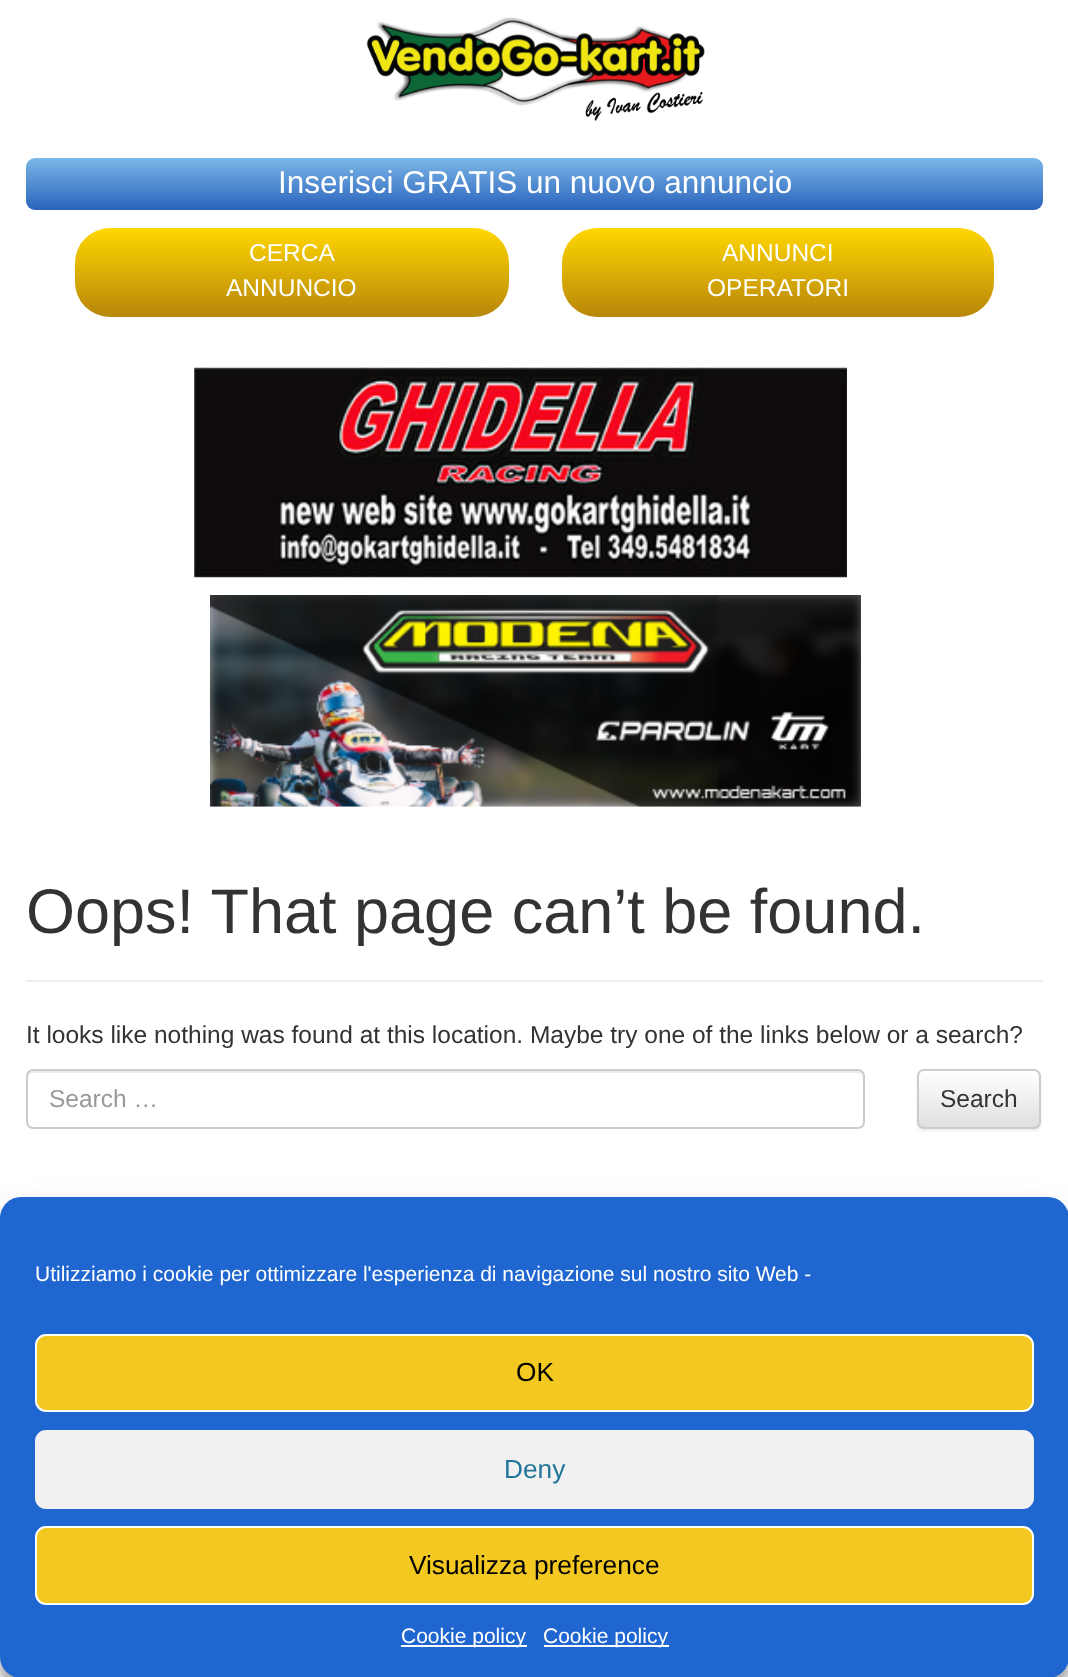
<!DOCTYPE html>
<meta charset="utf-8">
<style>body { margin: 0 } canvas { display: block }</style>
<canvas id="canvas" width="1068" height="1677"></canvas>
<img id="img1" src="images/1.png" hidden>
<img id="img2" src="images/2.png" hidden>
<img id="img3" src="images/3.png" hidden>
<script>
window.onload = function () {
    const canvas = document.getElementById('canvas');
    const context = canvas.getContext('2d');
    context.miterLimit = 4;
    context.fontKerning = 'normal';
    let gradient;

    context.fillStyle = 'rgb(255, 255, 255)';
    context.fillRect(0, 0, 1068, 1677);
    context.drawImage(document.getElementById('img1'), 366, 17, 339, 104);
    gradient = context.createLinearGradient(535, 157, 535, 210);
    gradient.addColorStop(0, 'rgb(125, 185, 232)');
    gradient.addColorStop(1, 'rgb(42, 98, 188)');
    gradient.addColorStop(1, 'rgb(125, 185, 232)');
    context.fillStyle = gradient;
    context.beginPath();
    context.roundRect(26, 158, 1017, 52, 9);
    context.fill();
    gradient = context.createLinearGradient(292, 228, 292, 317);
    gradient.addColorStop(0, 'rgb(255, 215, 0)');
    gradient.addColorStop(1, 'rgb(184, 134, 11)');
    gradient.addColorStop(1, 'rgb(255, 215, 0)');
    context.fillStyle = gradient;
    context.beginPath();
    context.roundRect(75, 228, 434, 89, 35);
    context.fill();
    gradient = context.createLinearGradient(778, 228, 778, 317);
    gradient.addColorStop(0, 'rgb(255, 215, 0)');
    gradient.addColorStop(1, 'rgb(184, 134, 11)');
    gradient.addColorStop(1, 'rgb(255, 215, 0)');
    context.fillStyle = gradient;
    context.beginPath();
    context.roundRect(562, 228, 432, 89, 35);
    context.fill();
    context.drawImage(document.getElementById('img2'), 194, 367, 653, 211);
    context.drawImage(document.getElementById('img3'), 210, 595, 651, 212);
    context.fillStyle = 'rgb(238, 238, 238)';
    context.fillRect(26, 980, 1017, 2);
    context.fillStyle = 'rgb(236, 236, 236)';
    context.beginPath();
    context.moveTo(33, 1073);
    context.lineTo(858, 1073);
    context.bezierCurveTo(860, 1073, 863, 1075, 863, 1078);
    context.lineTo(863, 1076);
    context.bezierCurveTo(863, 1073, 861, 1071, 858, 1071);
    context.lineTo(33, 1071);
    context.bezierCurveTo(30, 1071, 28, 1073, 28, 1076);
    context.lineTo(28, 1078);
    context.bezierCurveTo(28, 1075, 30, 1073, 33, 1073);
    context.closePath();
    context.fill();
    context.beginPath();
    context.roundRect(27, 1070, 837, 58, 6);
    context.strokeStyle = 'rgb(204, 204, 204)';
    context.lineWidth = 2;
    context.stroke();
    context.fillStyle = 'rgba(0, 0, 0, 0.07)';
    context.filter = 'blur(1px)';
    context.beginPath();
    context.roundRect(917, 1071, 124, 60, 7);
    context.fill();
    context.filter = 'none';
    context.save();
    context.beginPath();
    context.roundRect(917, 1069, 124, 60, 7);
    context.clip();
    gradient = context.createLinearGradient(979, 1071, 979, 1127);
    gradient.addColorStop(0, 'rgb(255, 255, 255)');
    gradient.addColorStop(1, 'rgb(224, 224, 224)');
    context.fillStyle = gradient;
    context.fillRect(917, 1071, 124, 56);
    context.restore();
    context.beginPath();
    context.roundRect(918, 1070, 122, 58, 6);
    context.stroke();
    context.fillStyle = 'rgba(0, 0, 0, 0.23)';
    context.filter = 'blur(5px)';
    context.beginPath();
    context.roundRect(0, 1208, 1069, 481, 21);
    context.fill();
    context.filter = 'none';
    context.fillStyle = 'rgba(0, 0, 0, 0.19)';
    context.filter = 'blur(17.5px)';
    context.beginPath();
    context.roundRect(0, 1215, 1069, 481, 21);
    context.fill();
    context.filter = 'none';
    context.fillStyle = 'rgb(31, 102, 209)';
    context.beginPath();
    context.roundRect(0, 1197, 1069, 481, 21);
    context.fill();
    context.fillStyle = 'rgb(242, 200, 33)';
    context.beginPath();
    context.roundRect(36, 1335, 997, 76, 10);
    context.fill();
    context.strokeStyle = 'rgb(255, 255, 255)';
    context.stroke();
    context.fillStyle = 'rgb(241, 241, 241)';
    context.beginPath();
    context.roundRect(36, 1431, 997, 77, 10);
    context.fill();
    context.strokeStyle = 'rgb(241, 241, 241)';
    context.stroke();
    context.fillStyle = 'rgb(242, 200, 33)';
    context.beginPath();
    context.roundRect(36, 1527, 997, 77, 10);
    context.fill();
    context.strokeStyle = 'rgb(255, 255, 255)';
    context.stroke();
    context.fillStyle = 'rgb(255, 255, 255)';
    context.fillRect(401, 1645, 126, 2);
    context.fillRect(544, 1645, 125, 2);
    context.font = '31.5px Liberation Sans';
    context.fillText('Inserisci GRATIS un nuovo annuncio', 278, 193);
    context.font = '24.5px Liberation Sans';
    context.fillText('CERCA', 249, 261);
    context.fillText('ANNUNCIO', 226, 296);
    context.fillText('ANNUNCI', 722, 261);
    context.fillText('OPERATORI', 707, 296);
    context.font = '63px Liberation Sans';
    context.fillStyle = 'rgb(51, 51, 51)';
    context.fillText('Oops! That page can’t be found.', 26, 933);
    context.font = '24.5px Liberation Sans';
    context.fillText('It looks like nothing was found at this location. Maybe try one of the links below or a search?', 26, 1043);
    context.fillStyle = 'rgb(153, 153, 153)';
    context.fillText('Search …', 49, 1107);
    context.fillStyle = 'rgb(51, 51, 51)';
    context.fillText('Search', 940, 1107);
    context.font = '21px Liberation Sans';
    context.fillStyle = 'rgb(255, 255, 255)';
    context.fillText('Utilizziamo i cookie per ottimizzare l\'esperienza di navigazione sul nostro sito Web -', 35, 1281);
    context.font = '26.25px Liberation Sans';
    context.fillStyle = 'rgb(0, 0, 0)';
    context.fillText('OK', 516, 1381);
    context.fillStyle = 'rgb(33, 117, 155)';
    context.fillText('Deny', 504, 1478);
    context.fillStyle = 'rgb(0, 0, 0)';
    context.fillText('Visualizza preference', 409, 1574);
    context.font = '21px Liberation Sans';
    context.fillStyle = 'rgb(255, 255, 255)';
    context.fillText('Cookie policy', 401, 1643);
    context.fillText('Cookie policy', 543, 1643);
};
</script>
